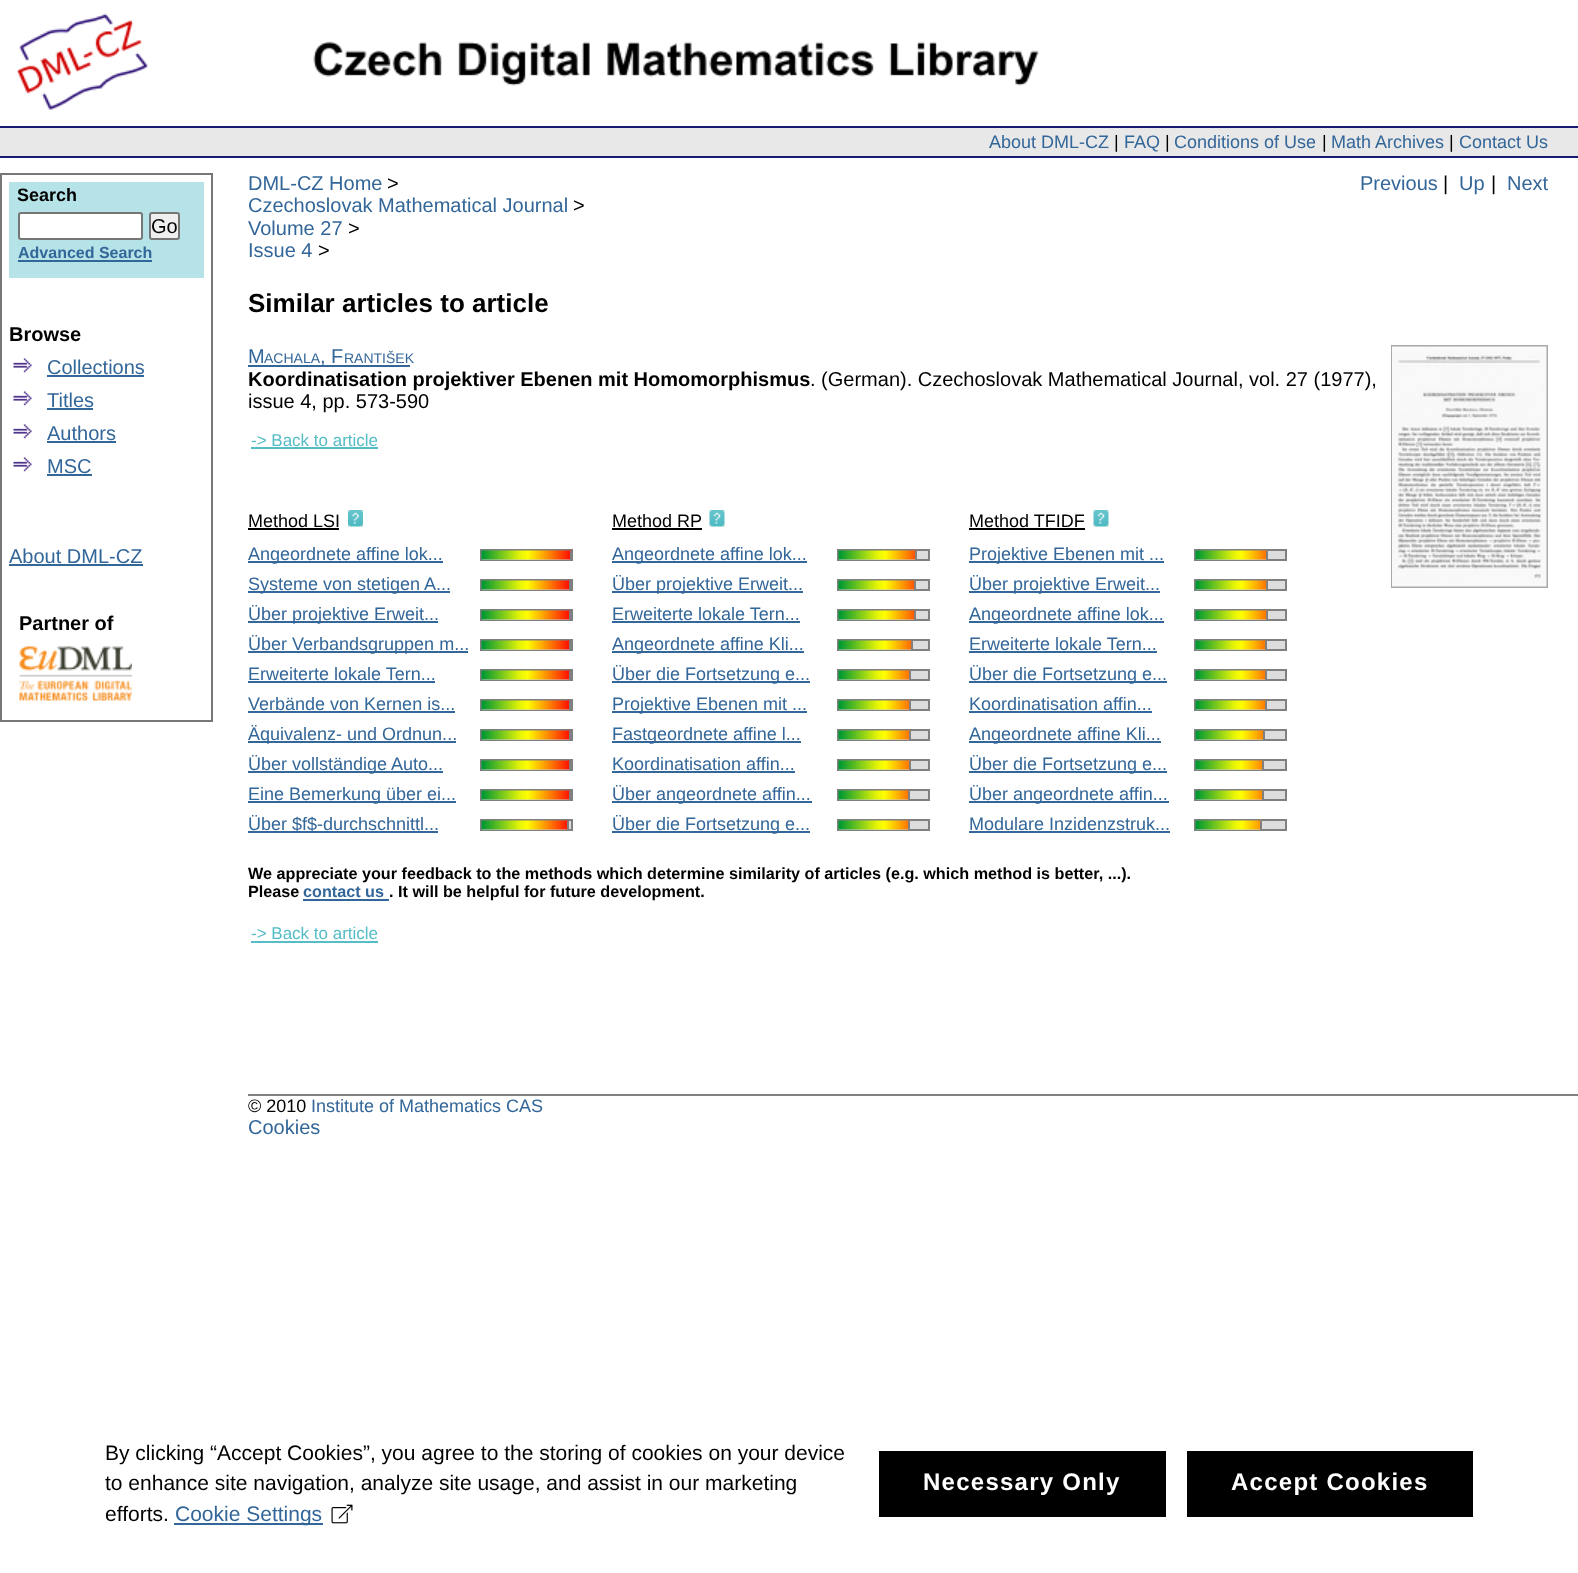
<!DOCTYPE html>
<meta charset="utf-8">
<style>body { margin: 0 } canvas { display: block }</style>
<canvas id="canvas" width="1578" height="1573"></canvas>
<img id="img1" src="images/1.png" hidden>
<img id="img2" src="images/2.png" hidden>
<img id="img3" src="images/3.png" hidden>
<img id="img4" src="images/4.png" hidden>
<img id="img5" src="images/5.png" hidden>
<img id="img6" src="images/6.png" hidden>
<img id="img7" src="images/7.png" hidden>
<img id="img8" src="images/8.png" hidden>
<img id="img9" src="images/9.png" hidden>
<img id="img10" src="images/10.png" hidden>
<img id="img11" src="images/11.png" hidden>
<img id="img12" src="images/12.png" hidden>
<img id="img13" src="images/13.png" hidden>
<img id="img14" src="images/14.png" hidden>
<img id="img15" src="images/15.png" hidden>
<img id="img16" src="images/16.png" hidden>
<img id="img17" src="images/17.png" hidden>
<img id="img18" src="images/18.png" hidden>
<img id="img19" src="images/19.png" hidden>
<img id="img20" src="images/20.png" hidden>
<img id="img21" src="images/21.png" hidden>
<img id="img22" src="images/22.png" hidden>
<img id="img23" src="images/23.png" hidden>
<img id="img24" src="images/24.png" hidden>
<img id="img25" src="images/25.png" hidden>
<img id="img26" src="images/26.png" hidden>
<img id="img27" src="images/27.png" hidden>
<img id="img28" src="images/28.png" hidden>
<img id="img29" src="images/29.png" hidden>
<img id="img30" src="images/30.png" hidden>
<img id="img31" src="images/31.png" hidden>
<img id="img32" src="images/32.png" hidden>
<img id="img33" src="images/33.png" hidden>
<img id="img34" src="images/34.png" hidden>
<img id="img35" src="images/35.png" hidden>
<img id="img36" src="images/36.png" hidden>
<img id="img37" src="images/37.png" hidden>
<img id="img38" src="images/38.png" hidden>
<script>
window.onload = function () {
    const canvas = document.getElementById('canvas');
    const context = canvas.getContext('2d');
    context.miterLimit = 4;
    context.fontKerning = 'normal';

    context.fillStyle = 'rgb(255, 255, 255)';
    context.fillRect(0, 0, 1578, 1573);
    context.strokeStyle = 'rgb(119, 119, 119)';
    context.lineWidth = 2;
    context.strokeRect(1, 174, 211, 547);
    context.fillStyle = 'rgb(181, 227, 231)';
    context.fillRect(9, 182, 195, 96);
    context.fillStyle = 'rgb(255, 255, 255)';
    context.beginPath();
    context.roundRect(19, 213, 123, 26, 2);
    context.fill();
    context.strokeStyle = 'rgb(118, 118, 118)';
    context.stroke();
    context.fillStyle = 'rgb(239, 239, 239)';
    context.beginPath();
    context.roundRect(150, 213, 29, 26, 2);
    context.fill();
    context.stroke();
    context.fillStyle = 'rgb(51, 102, 153)';
    context.fillRect(18, 260, 134, 2);
    context.drawImage(document.getElementById('img1'), 13, 358, 19, 15);
    context.fillRect(47, 375, 97, 2);
    context.drawImage(document.getElementById('img1'), 13, 391, 19, 15);
    context.fillRect(47, 408, 46, 2);
    context.drawImage(document.getElementById('img1'), 13, 424, 19, 15);
    context.fillRect(47, 441, 69, 2);
    context.drawImage(document.getElementById('img1'), 13, 457, 19, 15);
    context.fillRect(47, 474, 45, 2);
    context.fillRect(9, 564, 134, 2);
    context.drawImage(document.getElementById('img2'), 19, 646, 113, 55);
    context.drawImage(document.getElementById('img3'), 16, 13, 132, 97);
    context.drawImage(document.getElementById('img4'), 313, 41, 726, 45);
    context.fillStyle = 'rgb(232, 232, 232)';
    context.fillRect(0, 128, 1578, 28);
    context.fillStyle = 'rgb(25, 25, 112)';
    context.fillRect(0, 126, 1578, 2);
    context.fillRect(0, 156, 1578, 2);
    context.fillStyle = 'rgb(51, 102, 153)';
    context.fillRect(248, 365, 162, 2);
    context.strokeStyle = 'rgb(169, 169, 169)';
    context.strokeRect(1392, 346, 155, 241);
    context.drawImage(document.getElementById('img5'), 1392, 346, 155, 241);
    context.fillStyle = 'rgb(86, 189, 198)';
    context.fillRect(251, 447, 127, 2);
    context.fillStyle = 'rgb(0, 0, 0)';
    context.fillRect(248, 528, 91, 2);
    context.drawImage(document.getElementById('img6'), 348, 510, 15, 17);
    context.fillStyle = 'rgb(51, 102, 153)';
    context.fillRect(248, 561, 195, 2);
    context.strokeStyle = 'rgb(128, 128, 128)';
    context.strokeRect(481, 550, 91, 10);
    context.fillStyle = 'rgb(204, 204, 204)';
    context.fillRect(482, 559, 88, 1);
    context.drawImage(document.getElementById('img7'), 481, 550, 91, 10);
    context.fillStyle = 'rgb(128, 128, 128)';
    context.fillRect(570, 551, 2, 9);
    context.fillStyle = 'rgb(51, 102, 153)';
    context.fillRect(248, 591, 202, 2);
    context.strokeRect(481, 580, 91, 10);
    context.fillStyle = 'rgb(204, 204, 204)';
    context.fillRect(482, 589, 87, 1);
    context.drawImage(document.getElementById('img8'), 481, 580, 89, 10);
    context.fillStyle = 'rgb(128, 128, 128)';
    context.fillRect(569, 581, 2, 9);
    context.fillStyle = 'rgb(51, 102, 153)';
    context.fillRect(248, 621, 190, 2);
    context.strokeRect(481, 610, 91, 10);
    context.fillStyle = 'rgb(204, 204, 204)';
    context.fillRect(482, 619, 87, 1);
    context.drawImage(document.getElementById('img9'), 481, 610, 89, 10);
    context.fillStyle = 'rgb(128, 128, 128)';
    context.fillRect(569, 611, 2, 9);
    context.fillStyle = 'rgb(51, 102, 153)';
    context.fillRect(248, 651, 220, 2);
    context.strokeRect(481, 640, 91, 10);
    context.fillStyle = 'rgb(204, 204, 204)';
    context.fillRect(482, 649, 87, 1);
    context.drawImage(document.getElementById('img10'), 481, 640, 89, 10);
    context.fillStyle = 'rgb(128, 128, 128)';
    context.fillRect(569, 641, 2, 9);
    context.fillStyle = 'rgb(51, 102, 153)';
    context.fillRect(248, 681, 187, 2);
    context.strokeRect(481, 670, 91, 10);
    context.fillStyle = 'rgb(204, 204, 204)';
    context.fillRect(482, 679, 87, 1);
    context.drawImage(document.getElementById('img11'), 481, 670, 89, 10);
    context.fillStyle = 'rgb(128, 128, 128)';
    context.fillRect(569, 671, 2, 9);
    context.fillStyle = 'rgb(51, 102, 153)';
    context.fillRect(248, 711, 207, 2);
    context.strokeRect(481, 700, 91, 10);
    context.fillStyle = 'rgb(204, 204, 204)';
    context.fillRect(482, 709, 87, 1);
    context.drawImage(document.getElementById('img12'), 481, 700, 89, 10);
    context.fillStyle = 'rgb(128, 128, 128)';
    context.fillRect(569, 701, 2, 9);
    context.fillStyle = 'rgb(51, 102, 153)';
    context.fillRect(248, 741, 208, 2);
    context.strokeRect(481, 730, 91, 10);
    context.fillStyle = 'rgb(204, 204, 204)';
    context.fillRect(482, 739, 87, 1);
    context.drawImage(document.getElementById('img13'), 481, 730, 89, 10);
    context.fillStyle = 'rgb(128, 128, 128)';
    context.fillRect(569, 731, 2, 9);
    context.fillStyle = 'rgb(51, 102, 153)';
    context.fillRect(248, 771, 195, 2);
    context.strokeRect(481, 760, 91, 10);
    context.fillStyle = 'rgb(204, 204, 204)';
    context.fillRect(482, 769, 87, 1);
    context.drawImage(document.getElementById('img14'), 481, 760, 89, 10);
    context.fillStyle = 'rgb(128, 128, 128)';
    context.fillRect(569, 761, 2, 9);
    context.fillStyle = 'rgb(51, 102, 153)';
    context.fillRect(248, 801, 208, 2);
    context.strokeRect(481, 790, 91, 10);
    context.fillStyle = 'rgb(204, 204, 204)';
    context.fillRect(482, 799, 87, 1);
    context.drawImage(document.getElementById('img15'), 481, 790, 89, 10);
    context.fillStyle = 'rgb(128, 128, 128)';
    context.fillRect(569, 791, 2, 9);
    context.fillStyle = 'rgb(51, 102, 153)';
    context.fillRect(248, 831, 190, 2);
    context.fillStyle = 'rgb(221, 221, 221)';
    context.fillRect(569, 821, 2, 8);
    context.strokeRect(481, 820, 91, 10);
    context.fillStyle = 'rgb(204, 204, 204)';
    context.fillRect(482, 829, 85, 1);
    context.drawImage(document.getElementById('img16'), 481, 820, 88, 10);
    context.fillStyle = 'rgb(128, 128, 128)';
    context.fillRect(567, 821, 2, 9);
    context.fillStyle = 'rgb(0, 0, 0)';
    context.fillRect(612, 528, 90, 2);
    context.drawImage(document.getElementById('img17'), 709, 510, 16, 17);
    context.fillStyle = 'rgb(51, 102, 153)';
    context.fillRect(612, 561, 195, 2);
    context.fillStyle = 'rgb(221, 221, 221)';
    context.fillRect(917, 551, 11, 8);
    context.strokeRect(838, 550, 91, 10);
    context.fillStyle = 'rgb(204, 204, 204)';
    context.fillRect(839, 559, 76, 1);
    context.drawImage(document.getElementById('img18'), 838, 550, 79, 10);
    context.fillStyle = 'rgb(128, 128, 128)';
    context.fillRect(915, 551, 2, 9);
    context.fillStyle = 'rgb(51, 102, 153)';
    context.fillRect(612, 591, 191, 2);
    context.fillStyle = 'rgb(221, 221, 221)';
    context.fillRect(916, 581, 12, 8);
    context.strokeRect(838, 580, 91, 10);
    context.fillStyle = 'rgb(204, 204, 204)';
    context.fillRect(839, 589, 75, 1);
    context.drawImage(document.getElementById('img19'), 838, 580, 77, 10);
    context.fillStyle = 'rgb(128, 128, 128)';
    context.fillRect(914, 581, 2, 9);
    context.fillStyle = 'rgb(51, 102, 153)';
    context.fillRect(612, 621, 188, 2);
    context.fillStyle = 'rgb(221, 221, 221)';
    context.fillRect(916, 611, 12, 8);
    context.strokeRect(838, 610, 91, 10);
    context.fillStyle = 'rgb(204, 204, 204)';
    context.fillRect(839, 619, 75, 1);
    context.drawImage(document.getElementById('img20'), 838, 610, 77, 10);
    context.fillStyle = 'rgb(128, 128, 128)';
    context.fillRect(914, 611, 2, 9);
    context.fillStyle = 'rgb(51, 102, 153)';
    context.fillRect(612, 651, 192, 2);
    context.fillStyle = 'rgb(221, 221, 221)';
    context.fillRect(913, 641, 15, 8);
    context.strokeRect(838, 640, 91, 10);
    context.fillStyle = 'rgb(204, 204, 204)';
    context.fillRect(839, 649, 72, 1);
    context.drawImage(document.getElementById('img21'), 838, 640, 74, 10);
    context.fillStyle = 'rgb(128, 128, 128)';
    context.fillRect(911, 641, 2, 9);
    context.fillStyle = 'rgb(51, 102, 153)';
    context.fillRect(612, 681, 198, 2);
    context.fillStyle = 'rgb(221, 221, 221)';
    context.fillRect(911, 671, 17, 8);
    context.strokeRect(838, 670, 91, 10);
    context.fillStyle = 'rgb(204, 204, 204)';
    context.fillRect(839, 679, 70, 1);
    context.drawImage(document.getElementById('img22'), 838, 670, 73, 10);
    context.fillStyle = 'rgb(128, 128, 128)';
    context.fillRect(909, 671, 2, 9);
    context.fillStyle = 'rgb(51, 102, 153)';
    context.fillRect(612, 711, 195, 2);
    context.fillStyle = 'rgb(221, 221, 221)';
    context.fillRect(911, 701, 17, 8);
    context.strokeRect(838, 700, 91, 10);
    context.fillStyle = 'rgb(204, 204, 204)';
    context.fillRect(839, 709, 70, 1);
    context.drawImage(document.getElementById('img23'), 838, 700, 73, 10);
    context.fillStyle = 'rgb(128, 128, 128)';
    context.fillRect(909, 701, 2, 9);
    context.fillStyle = 'rgb(51, 102, 153)';
    context.fillRect(612, 741, 189, 2);
    context.fillStyle = 'rgb(221, 221, 221)';
    context.fillRect(911, 731, 17, 8);
    context.strokeRect(838, 730, 91, 10);
    context.fillStyle = 'rgb(204, 204, 204)';
    context.fillRect(839, 739, 70, 1);
    context.drawImage(document.getElementById('img24'), 838, 730, 73, 10);
    context.fillStyle = 'rgb(128, 128, 128)';
    context.fillRect(909, 731, 2, 9);
    context.fillStyle = 'rgb(51, 102, 153)';
    context.fillRect(612, 771, 183, 2);
    context.fillStyle = 'rgb(221, 221, 221)';
    context.fillRect(911, 761, 17, 8);
    context.strokeRect(838, 760, 91, 10);
    context.fillStyle = 'rgb(204, 204, 204)';
    context.fillRect(839, 769, 70, 1);
    context.drawImage(document.getElementById('img25'), 838, 760, 73, 10);
    context.fillStyle = 'rgb(128, 128, 128)';
    context.fillRect(909, 761, 2, 9);
    context.fillStyle = 'rgb(51, 102, 153)';
    context.fillRect(612, 801, 200, 2);
    context.fillStyle = 'rgb(221, 221, 221)';
    context.fillRect(910, 791, 18, 8);
    context.strokeRect(838, 790, 91, 10);
    context.fillStyle = 'rgb(204, 204, 204)';
    context.fillRect(839, 799, 69, 1);
    context.drawImage(document.getElementById('img26'), 838, 790, 71, 10);
    context.fillStyle = 'rgb(128, 128, 128)';
    context.fillRect(908, 791, 2, 9);
    context.fillStyle = 'rgb(51, 102, 153)';
    context.fillRect(612, 831, 198, 2);
    context.fillStyle = 'rgb(221, 221, 221)';
    context.fillRect(910, 821, 18, 8);
    context.strokeRect(838, 820, 91, 10);
    context.fillStyle = 'rgb(204, 204, 204)';
    context.fillRect(839, 829, 69, 1);
    context.drawImage(document.getElementById('img27'), 838, 820, 71, 10);
    context.fillStyle = 'rgb(128, 128, 128)';
    context.fillRect(908, 821, 2, 9);
    context.fillStyle = 'rgb(0, 0, 0)';
    context.fillRect(969, 528, 116, 2);
    context.drawImage(document.getElementById('img28'), 1093, 510, 16, 17);
    context.fillStyle = 'rgb(51, 102, 153)';
    context.fillRect(969, 561, 195, 2);
    context.fillStyle = 'rgb(221, 221, 221)';
    context.fillRect(1268, 551, 17, 8);
    context.strokeRect(1195, 550, 91, 10);
    context.fillStyle = 'rgb(204, 204, 204)';
    context.fillRect(1196, 559, 70, 1);
    context.drawImage(document.getElementById('img29'), 1195, 550, 73, 10);
    context.fillStyle = 'rgb(128, 128, 128)';
    context.fillRect(1266, 551, 2, 9);
    context.fillStyle = 'rgb(51, 102, 153)';
    context.fillRect(969, 591, 191, 2);
    context.fillStyle = 'rgb(221, 221, 221)';
    context.fillRect(1268, 581, 17, 8);
    context.strokeRect(1195, 580, 91, 10);
    context.fillStyle = 'rgb(204, 204, 204)';
    context.fillRect(1196, 589, 70, 1);
    context.drawImage(document.getElementById('img30'), 1195, 580, 73, 10);
    context.fillStyle = 'rgb(128, 128, 128)';
    context.fillRect(1266, 581, 2, 9);
    context.fillStyle = 'rgb(51, 102, 153)';
    context.fillRect(969, 621, 195, 2);
    context.fillStyle = 'rgb(221, 221, 221)';
    context.fillRect(1268, 611, 17, 8);
    context.strokeRect(1195, 610, 91, 10);
    context.fillStyle = 'rgb(204, 204, 204)';
    context.fillRect(1196, 619, 70, 1);
    context.drawImage(document.getElementById('img31'), 1195, 610, 73, 10);
    context.fillStyle = 'rgb(128, 128, 128)';
    context.fillRect(1266, 611, 2, 9);
    context.fillStyle = 'rgb(51, 102, 153)';
    context.fillRect(969, 651, 188, 2);
    context.fillStyle = 'rgb(221, 221, 221)';
    context.fillRect(1267, 641, 18, 8);
    context.strokeRect(1195, 640, 91, 10);
    context.fillStyle = 'rgb(204, 204, 204)';
    context.fillRect(1196, 649, 69, 1);
    context.drawImage(document.getElementById('img26'), 1195, 640, 71, 10);
    context.fillStyle = 'rgb(128, 128, 128)';
    context.fillRect(1265, 641, 2, 9);
    context.fillStyle = 'rgb(51, 102, 153)';
    context.fillRect(969, 681, 198, 2);
    context.fillStyle = 'rgb(221, 221, 221)';
    context.fillRect(1267, 671, 18, 8);
    context.strokeRect(1195, 670, 91, 10);
    context.fillStyle = 'rgb(204, 204, 204)';
    context.fillRect(1196, 679, 69, 1);
    context.drawImage(document.getElementById('img32'), 1195, 670, 71, 10);
    context.fillStyle = 'rgb(128, 128, 128)';
    context.fillRect(1265, 671, 2, 9);
    context.fillStyle = 'rgb(51, 102, 153)';
    context.fillRect(969, 711, 183, 2);
    context.fillStyle = 'rgb(221, 221, 221)';
    context.fillRect(1267, 701, 18, 8);
    context.strokeRect(1195, 700, 91, 10);
    context.fillStyle = 'rgb(204, 204, 204)';
    context.fillRect(1196, 709, 69, 1);
    context.drawImage(document.getElementById('img33'), 1195, 700, 71, 10);
    context.fillStyle = 'rgb(128, 128, 128)';
    context.fillRect(1265, 701, 2, 9);
    context.fillStyle = 'rgb(51, 102, 153)';
    context.fillRect(969, 741, 192, 2);
    context.fillStyle = 'rgb(221, 221, 221)';
    context.fillRect(1265, 731, 20, 8);
    context.strokeRect(1195, 730, 91, 10);
    context.fillStyle = 'rgb(204, 204, 204)';
    context.fillRect(1196, 739, 67, 1);
    context.drawImage(document.getElementById('img34'), 1195, 730, 70, 10);
    context.fillStyle = 'rgb(128, 128, 128)';
    context.fillRect(1263, 731, 2, 9);
    context.fillStyle = 'rgb(51, 102, 153)';
    context.fillRect(969, 771, 198, 2);
    context.fillStyle = 'rgb(221, 221, 221)';
    context.fillRect(1264, 761, 21, 8);
    context.strokeRect(1195, 760, 91, 10);
    context.fillStyle = 'rgb(204, 204, 204)';
    context.fillRect(1196, 769, 66, 1);
    context.drawImage(document.getElementById('img35'), 1195, 760, 68, 10);
    context.fillStyle = 'rgb(128, 128, 128)';
    context.fillRect(1262, 761, 2, 9);
    context.fillStyle = 'rgb(51, 102, 153)';
    context.fillRect(969, 801, 200, 2);
    context.fillStyle = 'rgb(221, 221, 221)';
    context.fillRect(1264, 791, 21, 8);
    context.strokeRect(1195, 790, 91, 10);
    context.fillStyle = 'rgb(204, 204, 204)';
    context.fillRect(1196, 799, 66, 1);
    context.drawImage(document.getElementById('img36'), 1195, 790, 68, 10);
    context.fillStyle = 'rgb(128, 128, 128)';
    context.fillRect(1262, 791, 2, 9);
    context.fillStyle = 'rgb(51, 102, 153)';
    context.fillRect(969, 831, 201, 2);
    context.fillStyle = 'rgb(221, 221, 221)';
    context.fillRect(1262, 821, 23, 8);
    context.strokeRect(1195, 820, 91, 10);
    context.fillStyle = 'rgb(204, 204, 204)';
    context.fillRect(1196, 829, 64, 1);
    context.drawImage(document.getElementById('img37'), 1195, 820, 67, 10);
    context.fillStyle = 'rgb(128, 128, 128)';
    context.fillRect(1260, 821, 2, 9);
    context.fillStyle = 'rgb(51, 102, 153)';
    context.fillRect(303, 899, 86, 2);
    context.fillStyle = 'rgb(86, 189, 198)';
    context.fillRect(251, 941, 127, 2);
    context.fillStyle = 'rgb(128, 128, 128)';
    context.fillRect(248, 1094, 1330, 2);
    context.fillStyle = 'rgb(51, 102, 153)';
    context.fillRect(174, 1523, 149, 2);
    context.drawImage(document.getElementById('img38'), 331, 1504, 22, 20);
    context.fillStyle = 'rgb(0, 0, 0)';
    context.fillRect(879, 1451, 287, 66);
    context.fillRect(1187, 1451, 286, 66);
    context.font = 'bold 18px Liberation Sans';
    context.fillText('Search', 17, 201);
    context.font = '20px Liberation Sans';
    context.fillText('Go', 151, 233);
    context.font = 'bold 16px Liberation Sans';
    context.fillStyle = 'rgb(51, 102, 153)';
    context.fillText('Advanced Search', 18, 258);
    context.font = 'bold 20px Liberation Sans';
    context.fillStyle = 'rgb(0, 0, 0)';
    context.fillText('Browse', 9, 341);
    context.font = '20px Liberation Sans';
    context.fillStyle = 'rgb(51, 102, 153)';
    context.fillText('Collections', 47, 374);
    context.fillText('Titles', 47, 407);
    context.fillText('Authors', 47, 440);
    context.fillText('MSC', 47, 473);
    context.fillText('About DML-CZ', 9, 563);
    context.font = 'bold 20px Liberation Sans';
    context.fillStyle = 'rgb(0, 0, 0)';
    context.fillText('Partner of', 19, 630);
    context.font = '18px Liberation Sans';
    context.fillStyle = 'rgb(51, 102, 153)';
    context.fillText('About DML-CZ', 989, 148);
    context.fillStyle = 'rgb(0, 0, 0)';
    context.fillText('|', 1114, 148);
    context.fillStyle = 'rgb(51, 102, 153)';
    context.fillText('FAQ', 1124, 148);
    context.fillStyle = 'rgb(0, 0, 0)';
    context.fillText('|', 1165, 148);
    context.fillStyle = 'rgb(51, 102, 153)';
    context.fillText('Conditions of Use', 1174, 148);
    context.fillStyle = 'rgb(0, 0, 0)';
    context.fillText('|', 1322, 148);
    context.fillStyle = 'rgb(51, 102, 153)';
    context.fillText('Math Archives', 1331, 148);
    context.fillStyle = 'rgb(0, 0, 0)';
    context.fillText('|', 1449, 148);
    context.fillStyle = 'rgb(51, 102, 153)';
    context.fillText('Contact Us', 1459, 148);
    context.font = '20px Liberation Sans';
    context.fillText('DML-CZ Home', 248, 190);
    context.fillStyle = 'rgb(0, 0, 0)';
    context.fillText('>', 387, 190);
    context.fillStyle = 'rgb(51, 102, 153)';
    context.fillText('Czechoslovak Mathematical Journal', 248, 212);
    context.fillStyle = 'rgb(0, 0, 0)';
    context.fillText('>', 573, 212);
    context.fillStyle = 'rgb(51, 102, 153)';
    context.fillText('Volume 27', 248, 235);
    context.fillStyle = 'rgb(0, 0, 0)';
    context.fillText('>', 348, 235);
    context.fillStyle = 'rgb(51, 102, 153)';
    context.fillText('Issue 4', 248, 257);
    context.fillStyle = 'rgb(0, 0, 0)';
    context.fillText('>', 318, 257);
    context.fillStyle = 'rgb(51, 102, 153)';
    context.fillText('Previous', 1360, 190);
    context.fillStyle = 'rgb(0, 0, 0)';
    context.fillText('|', 1443, 190);
    context.fillStyle = 'rgb(51, 102, 153)';
    context.fillText('Up', 1459, 190);
    context.fillStyle = 'rgb(0, 0, 0)';
    context.fillText('|', 1491, 190);
    context.fillStyle = 'rgb(51, 102, 153)';
    context.fillText('Next', 1507, 190);
    context.font = 'bold 26px Liberation Sans';
    context.fillStyle = 'rgb(0, 0, 0)';
    context.fillText('Similar articles to article', 248, 312);
    context.font = '20px Liberation Sans';
    context.fillStyle = 'rgb(51, 102, 153)';
    context.fillText('M', 248, 363);
    context.font = '14px Liberation Sans';
    context.fillText('ACHALA', 264, 363);
    context.font = '20px Liberation Sans';
    context.fillText(', F', 320, 363);
    context.font = '14px Liberation Sans';
    context.fillText('RANTIŠEK', 344, 363);
    context.font = 'bold 20px Liberation Sans';
    context.fillStyle = 'rgb(0, 0, 0)';
    context.fillText('Koordinatisation projektiver Ebenen mit Homomorphismus', 248, 386);
    context.font = '20px Liberation Sans';
    context.fillText('. (German). Czechoslovak Mathematical Journal, vol. 27 (1977),', 810, 386);
    context.fillText('issue 4, pp. 573-590', 248, 408);
    context.font = '17px Liberation Sans';
    context.fillStyle = 'rgb(86, 189, 198)';
    context.fillText('-> Back to article', 251, 446);
    context.font = '18px Liberation Sans';
    context.fillStyle = 'rgb(0, 0, 0)';
    context.fillText('Method LSI', 248, 527);
    context.fillStyle = 'rgb(51, 102, 153)';
    context.fillText('Angeordnete affine lok...', 248, 560);
    context.fillText('Systeme von stetigen A...', 248, 590);
    context.fillText('Über projektive Erweit...', 248, 620);
    context.fillText('Über Verbandsgruppen m...', 248, 650);
    context.fillText('Erweiterte lokale Tern...', 248, 680);
    context.fillText('Verbände von Kernen is...', 248, 710);
    context.fillText('Äquivalenz- und Ordnun...', 248, 740);
    context.fillText('Über vollständige Auto...', 248, 770);
    context.fillText('Eine Bemerkung über ei...', 248, 800);
    context.fillText('Über $f$-durchschnittl...', 248, 830);
    context.fillStyle = 'rgb(0, 0, 0)';
    context.fillText('Method RP', 612, 527);
    context.fillStyle = 'rgb(51, 102, 153)';
    context.fillText('Angeordnete affine lok...', 612, 560);
    context.fillText('Über projektive Erweit...', 612, 590);
    context.fillText('Erweiterte lokale Tern...', 612, 620);
    context.fillText('Angeordnete affine Kli...', 612, 650);
    context.fillText('Über die Fortsetzung e...', 612, 680);
    context.fillText('Projektive Ebenen mit ...', 612, 710);
    context.fillText('Fastgeordnete affine l...', 612, 740);
    context.fillText('Koordinatisation affin...', 612, 770);
    context.fillText('Über angeordnete affin...', 612, 800);
    context.fillText('Über die Fortsetzung e...', 612, 830);
    context.fillStyle = 'rgb(0, 0, 0)';
    context.fillText('Method TFIDF', 969, 527);
    context.fillStyle = 'rgb(51, 102, 153)';
    context.fillText('Projektive Ebenen mit ...', 969, 560);
    context.fillText('Über projektive Erweit...', 969, 590);
    context.fillText('Angeordnete affine lok...', 969, 620);
    context.fillText('Erweiterte lokale Tern...', 969, 650);
    context.fillText('Über die Fortsetzung e...', 969, 680);
    context.fillText('Koordinatisation affin...', 969, 710);
    context.fillText('Angeordnete affine Kli...', 969, 740);
    context.fillText('Über die Fortsetzung e...', 969, 770);
    context.fillText('Über angeordnete affin...', 969, 800);
    context.fillText('Modulare Inzidenzstruk...', 969, 830);
    context.save();
    context.beginPath();
    context.rect(248, 488, 1135, 418);
    context.clip();
    context.font = 'bold 16.2px Liberation Sans';
    context.fillStyle = 'rgb(0, 0, 0)';
    context.fillText('We appreciate your feedback to the methods which determine similarity of articles (e.g. which method is better, ...).', 248, 879);
    context.restore();
    context.font = 'bold 16.2px Liberation Sans';
    context.fillStyle = 'rgb(0, 0, 0)';
    context.fillText('Please', 248, 897);
    context.fillStyle = 'rgb(51, 102, 153)';
    context.fillText('contact us', 303, 897);
    context.fillStyle = 'rgb(0, 0, 0)';
    context.fillText('. It will be helpful for future development.', 389, 897);
    context.font = '17px Liberation Sans';
    context.fillStyle = 'rgb(86, 189, 198)';
    context.fillText('-> Back to article', 251, 939);
    context.font = '18px Liberation Sans';
    context.fillStyle = 'rgb(0, 0, 0)';
    context.fillText('© 2010', 248, 1112);
    context.fillStyle = 'rgb(51, 102, 153)';
    context.fillText('Institute of Mathematics CAS', 311, 1112);
    context.font = '20px Liberation Sans';
    context.fillText('Cookies', 248, 1134);
    context.font = '21px Liberation Sans';
    context.fillStyle = 'rgb(0, 0, 0)';
    context.fillText('By clicking “Accept Cookies”, you agree to the storing of cookies on your device', 105, 1460);
    context.fillText('to enhance site navigation, analyze site usage, and assist in our marketing', 105, 1490);
    context.fillText('efforts.', 105, 1521);
    context.fillStyle = 'rgb(51, 102, 153)';
    context.fillText('Cookie Settings', 175, 1521);
    context.letterSpacing = '1.25px';
    context.font = 'bold 24px Liberation Sans';
    context.fillStyle = 'rgb(255, 255, 255)';
    context.fillText('Necessary Only', 923, 1490);
    context.fillText('Accept Cookies', 1231, 1490);
};
</script>
